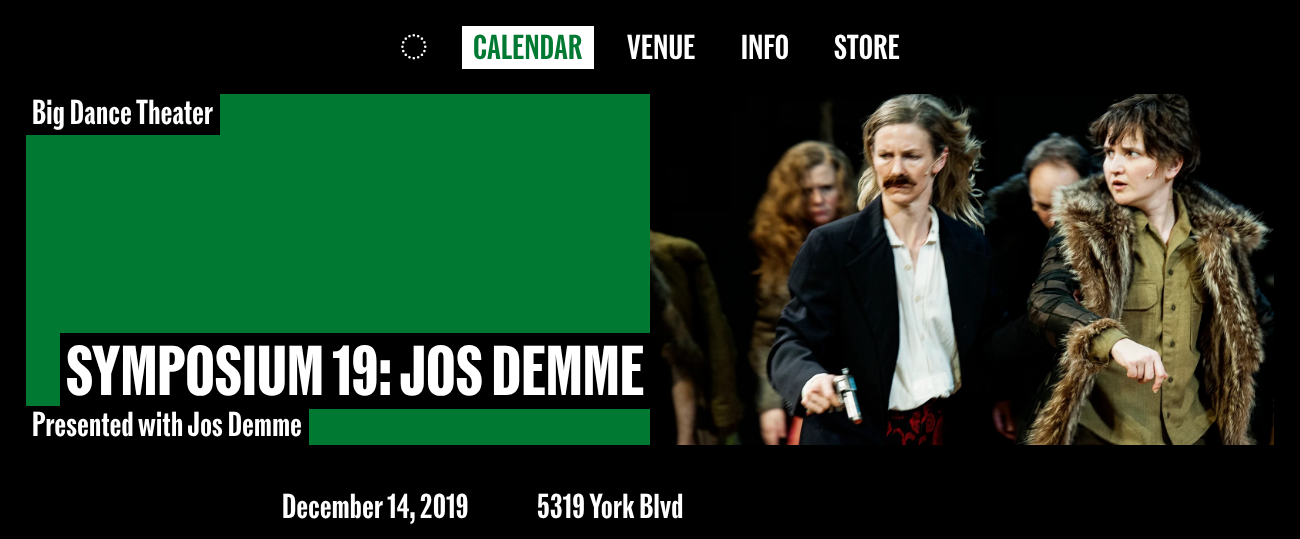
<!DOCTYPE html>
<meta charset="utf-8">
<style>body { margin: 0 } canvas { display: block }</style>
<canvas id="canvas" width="1300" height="539"></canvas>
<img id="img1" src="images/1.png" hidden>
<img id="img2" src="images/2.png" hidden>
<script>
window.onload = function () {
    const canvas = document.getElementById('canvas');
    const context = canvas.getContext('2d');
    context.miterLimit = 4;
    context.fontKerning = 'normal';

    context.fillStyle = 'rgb(0, 0, 0)';
    context.fillRect(0, 0, 1300, 539);
    context.drawImage(document.getElementById('img1'), 401, 34, 26, 26);
    context.fillStyle = 'rgb(255, 255, 255)';
    context.fillRect(473, 26, 110, 43);
    context.save();
    context.beginPath();
    context.rect(386, 26, 528, 43);
    context.clip();
    context.strokeStyle = 'rgb(255, 255, 255)';
    context.lineWidth = 11;
    context.strokeRect(467.5, 20.5, 121, 56);
    context.restore();
    context.fillStyle = 'rgb(0, 122, 51)';
    context.fillRect(26, 94, 624, 351);
    context.fillStyle = 'rgb(0, 0, 0)';
    context.fillRect(26, 94, 194, 41);
    context.fillRect(26, 406, 283, 39);
    context.fillRect(60, 333, 590, 76);
    context.drawImage(document.getElementById('img2'), 650, 94, 624, 351);
    context.letterSpacing = '0.3px';
    context.font = 'bold 34.5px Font';
    context.fillStyle = 'rgb(0, 122, 51)';
    context.fillText('CALENDAR', 473, 59);
    context.fillStyle = 'rgb(255, 255, 255)';
    context.fillText('VENUE', 627, 59);
    context.fillText('INFO', 741, 59);
    context.fillText('STORE', 834, 59);
    context.fillText('Big Dance Theater', 32, 124);
    context.letterSpacing = '0px';
    context.font = '800 70.5px Font';
    context.fillText('SYMPOSIUM 19: JOS DEMME', 66, 395);
    context.letterSpacing = '0.3px';
    context.font = 'bold 34.5px Font';
    context.fillText('Presented with Jos Demme', 32, 436);
    context.fillText('December 14, 2019', 282, 518);
    context.fillText('5319 York Blvd', 537, 518);
};
</script>
